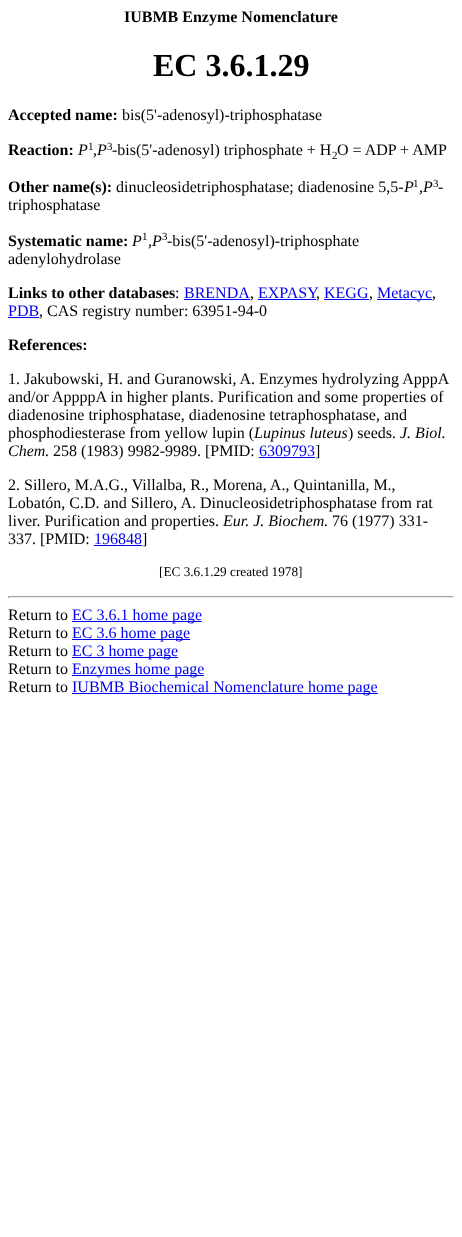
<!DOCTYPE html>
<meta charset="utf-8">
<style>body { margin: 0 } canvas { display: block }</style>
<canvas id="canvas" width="462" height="1237"></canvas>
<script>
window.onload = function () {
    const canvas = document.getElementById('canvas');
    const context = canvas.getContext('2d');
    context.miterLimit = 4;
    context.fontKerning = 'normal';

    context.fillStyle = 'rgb(255, 255, 255)';
    context.fillRect(0, 0, 462, 1237);
    context.fillStyle = 'rgb(0, 0, 238)';
    context.fillRect(184, 299, 66, 1);
    context.fillRect(258, 299, 58, 1);
    context.fillRect(324, 299, 45, 1);
    context.fillRect(377, 299, 55, 1);
    context.fillRect(8, 317, 31, 1);
    context.fillRect(259, 457, 56, 1);
    context.fillRect(94, 545, 48, 1);
    context.fillStyle = 'rgb(159, 159, 159)';
    context.fillRect(8, 596, 446, 1);
    context.fillStyle = 'rgb(238, 238, 238)';
    context.fillRect(453, 596, 1, 2);
    context.fillRect(8, 597, 446, 1);
    context.fillStyle = 'rgb(159, 159, 159)';
    context.fillRect(8, 596, 1, 2);
    context.fillStyle = 'rgb(0, 0, 238)';
    context.fillRect(72, 621, 130, 1);
    context.fillRect(72, 639, 118, 1);
    context.fillRect(72, 657, 106, 1);
    context.fillRect(72, 675, 132, 1);
    context.fillRect(72, 693, 306, 1);
    context.font = 'bold 16px Liberation Serif';
    context.fillStyle = 'rgb(0, 0, 0)';
    context.fillText('IUBMB Enzyme Nomenclature', 124, 22);
    context.font = 'bold 32px Liberation Serif';
    context.fillText('EC 3.6.1.29', 153, 76);
    context.font = 'bold 16px Liberation Serif';
    context.fillText('Accepted name:', 8, 120);
    context.font = '16px Liberation Serif';
    context.fillText('bis(5\'-adenosyl)-triphosphatase', 122, 120);
    context.font = 'bold 16px Liberation Serif';
    context.fillText('Reaction:', 8, 155);
    context.font = 'italic 16px Liberation Serif';
    context.fillText('P', 78, 155);
    context.font = '11px Liberation Serif';
    context.fillText('1', 88, 150);
    context.font = '16px Liberation Serif';
    context.fillText(',', 93, 155);
    context.font = 'italic 16px Liberation Serif';
    context.fillText('P', 97, 155);
    context.font = '11px Liberation Serif';
    context.fillText('3', 107, 150);
    context.font = '16px Liberation Serif';
    context.fillText('-bis(5\'-adenosyl) triphosphate + H', 112, 155);
    context.font = '11px Liberation Serif';
    context.fillText('2', 332, 159);
    context.font = '16px Liberation Serif';
    context.fillText('O = ADP + AMP', 337, 155);
    context.font = 'bold 16px Liberation Serif';
    context.fillText('Other name(s):', 8, 192);
    context.font = '16px Liberation Serif';
    context.fillText('dinucleosidetriphosphatase; diadenosine 5,5-', 116, 192);
    context.font = 'italic 16px Liberation Serif';
    context.fillText('P', 404, 192);
    context.font = '11px Liberation Serif';
    context.fillText('1', 413, 187);
    context.font = 'italic 16px Liberation Serif';
    context.fillText(',P', 419, 192);
    context.font = '11px Liberation Serif';
    context.fillText('3', 433, 187);
    context.font = '16px Liberation Serif';
    context.fillText('-', 438, 192);
    context.fillText('triphosphatase', 8, 210);
    context.font = 'bold 16px Liberation Serif';
    context.fillText('Systematic name:', 8, 246);
    context.font = 'italic 16px Liberation Serif';
    context.fillText('P', 132, 246);
    context.font = '11px Liberation Serif';
    context.fillText('1', 142, 240);
    context.font = 'italic 16px Liberation Serif';
    context.fillText(',P', 148, 246);
    context.font = '11px Liberation Serif';
    context.fillText('3', 162, 240);
    context.font = '16px Liberation Serif';
    context.fillText('-bis(5\'-adenosyl)-triphosphate', 167, 246);
    context.fillText('adenylohydrolase', 8, 264);
    context.font = 'bold 16px Liberation Serif';
    context.fillText('Links to other databases', 8, 298);
    context.font = '16px Liberation Serif';
    context.fillText(':', 175, 298);
    context.fillStyle = 'rgb(0, 0, 238)';
    context.fillText('BRENDA', 184, 298);
    context.fillStyle = 'rgb(0, 0, 0)';
    context.fillText(',', 250, 298);
    context.fillStyle = 'rgb(0, 0, 238)';
    context.fillText('EXPASY', 258, 298);
    context.fillText('KEGG', 324, 298);
    context.fillText('Metacyc', 377, 298);
    context.fillStyle = 'rgb(0, 0, 0)';
    context.fillText(',', 316, 298);
    context.fillText(',', 369, 298);
    context.fillText(',', 432, 298);
    context.fillStyle = 'rgb(0, 0, 238)';
    context.fillText('PDB', 8, 316);
    context.fillStyle = 'rgb(0, 0, 0)';
    context.fillText(', CAS registry number: 63951-94-0', 39, 316);
    context.font = 'bold 16px Liberation Serif';
    context.fillText('References:', 8, 350);
    context.font = '16px Liberation Serif';
    context.fillText('1. Jakubowski, H. and Guranowski, A. Enzymes hydrolyzing ApppA', 8, 384);
    context.fillText('and/or AppppA in higher plants. Purification and some properties of', 8, 402);
    context.fillText('diadenosine triphosphatase, diadenosine tetraphosphatase, and', 8, 420);
    context.fillText('phosphodiesterase from yellow lupin (', 8, 438);
    context.font = 'italic 16px Liberation Serif';
    context.fillText('Lupinus luteus', 254, 438);
    context.font = '16px Liberation Serif';
    context.fillText(') seeds.', 348, 438);
    context.font = 'italic 16px Liberation Serif';
    context.fillText('J. Biol.', 400, 438);
    context.fillText('Chem.', 8, 456);
    context.font = '16px Liberation Serif';
    context.fillText('258 (1983) 9982-9989. [PMID:', 53, 456);
    context.fillStyle = 'rgb(0, 0, 238)';
    context.fillText('6309793', 259, 456);
    context.fillStyle = 'rgb(0, 0, 0)';
    context.fillText(']', 315, 456);
    context.fillText('2. Sillero, M.A.G., Villalba, R., Morena, A., Quintanilla, M.,', 8, 490);
    context.fillText('Lobatón, C.D. and Sillero, A. Dinucleosidetriphosphatase from rat', 8, 508);
    context.fillText('liver. Purification and properties.', 8, 526);
    context.font = 'italic 16px Liberation Serif';
    context.fillText('Eur. J. Biochem.', 223, 526);
    context.font = '16px Liberation Serif';
    context.fillText('76 (1977) 331-', 332, 526);
    context.fillText('337. [PMID:', 8, 544);
    context.fillStyle = 'rgb(0, 0, 238)';
    context.fillText('196848', 94, 544);
    context.fillStyle = 'rgb(0, 0, 0)';
    context.fillText(']', 142, 544);
    context.font = '13.25px Liberation Serif';
    context.fillText('[EC 3.6.1.29 created 1978]', 159, 576);
    context.font = '16px Liberation Serif';
    context.fillText('Return to', 8, 620);
    context.fillStyle = 'rgb(0, 0, 238)';
    context.fillText('EC 3.6.1 home page', 72, 620);
    context.fillStyle = 'rgb(0, 0, 0)';
    context.fillText('Return to', 8, 638);
    context.fillStyle = 'rgb(0, 0, 238)';
    context.fillText('EC 3.6 home page', 72, 638);
    context.fillStyle = 'rgb(0, 0, 0)';
    context.fillText('Return to', 8, 656);
    context.fillStyle = 'rgb(0, 0, 238)';
    context.fillText('EC 3 home page', 72, 656);
    context.fillStyle = 'rgb(0, 0, 0)';
    context.fillText('Return to', 8, 674);
    context.fillStyle = 'rgb(0, 0, 238)';
    context.fillText('Enzymes home page', 72, 674);
    context.fillStyle = 'rgb(0, 0, 0)';
    context.fillText('Return to', 8, 692);
    context.fillStyle = 'rgb(0, 0, 238)';
    context.fillText('IUBMB Biochemical Nomenclature home page', 72, 692);
};
</script>
